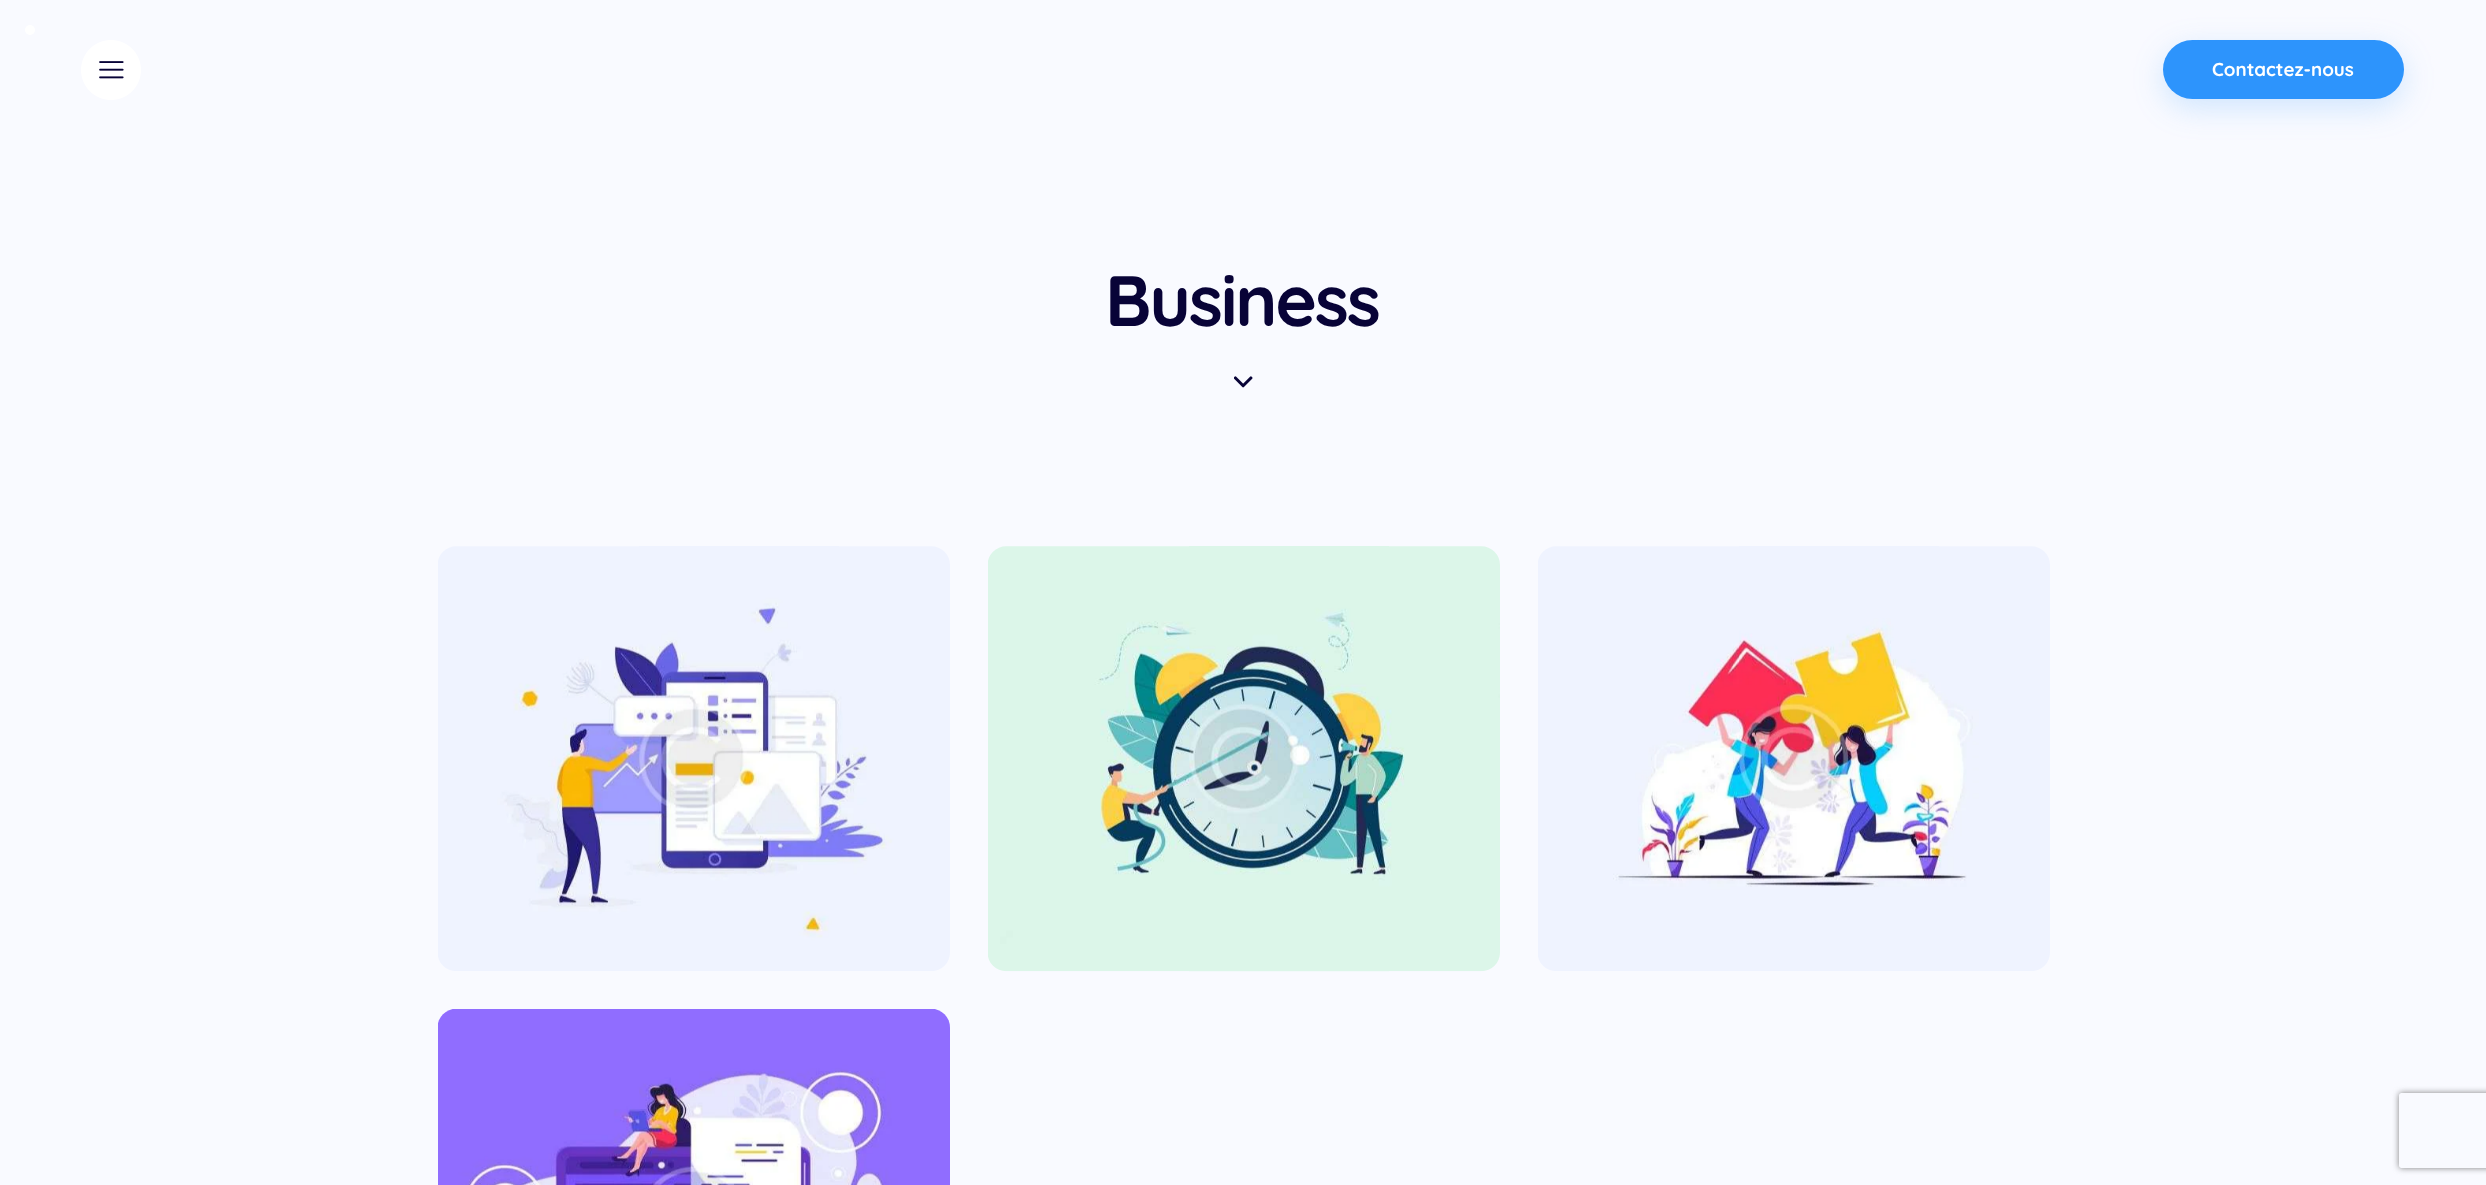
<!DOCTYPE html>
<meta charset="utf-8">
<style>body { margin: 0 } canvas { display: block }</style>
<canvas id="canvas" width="2486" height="1185"></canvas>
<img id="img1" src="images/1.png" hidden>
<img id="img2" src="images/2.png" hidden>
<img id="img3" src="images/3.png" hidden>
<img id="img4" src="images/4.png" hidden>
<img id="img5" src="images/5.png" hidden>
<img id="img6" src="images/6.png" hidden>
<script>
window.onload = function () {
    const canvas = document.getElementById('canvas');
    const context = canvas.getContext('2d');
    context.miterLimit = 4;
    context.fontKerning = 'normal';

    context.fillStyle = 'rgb(249, 250, 255)';
    context.fillRect(0, 0, 2486, 1185);
    context.fillStyle = 'rgb(255, 255, 255)';
    context.beginPath();
    context.arc(30, 30, 5, 0, 2 * Math.PI);
    context.fill();
    context.drawImage(document.getElementById('img1'), 81, 40, 60, 60);
    context.fillStyle = 'rgba(45, 148, 252, 0.2)';
    context.filter = 'blur(15.5px)';
    context.beginPath();
    context.roundRect(2163, 49, 241, 59, 29.5);
    context.fill();
    context.filter = 'none';
    context.fillStyle = 'rgb(45, 148, 252)';
    context.beginPath();
    context.roundRect(2163, 40, 241, 59, 29.5);
    context.fill();
    context.drawImage(document.getElementById('img2'), 1234, 376, 19, 12);
    context.drawImage(document.getElementById('img3'), 438, 546, 512, 425);
    context.drawImage(document.getElementById('img4'), 988, 546, 512, 426);
    context.drawImage(document.getElementById('img5'), 1538, 546, 512, 425);
    context.drawImage(document.getElementById('img6'), 438, 1009, 512, 176);
    context.save();
    context.beginPath();
    context.moveTo(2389, 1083);
    context.lineTo(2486, 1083);
    context.lineTo(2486, 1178);
    context.lineTo(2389, 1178);
    context.closePath();
    context.moveTo(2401.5, 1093);
    context.lineTo(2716.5, 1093);
    context.bezierCurveTo(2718, 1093, 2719, 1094, 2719, 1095.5);
    context.lineTo(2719, 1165.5);
    context.bezierCurveTo(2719, 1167, 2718, 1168, 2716.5, 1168);
    context.lineTo(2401.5, 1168);
    context.bezierCurveTo(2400, 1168, 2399, 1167, 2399, 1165.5);
    context.lineTo(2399, 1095.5);
    context.bezierCurveTo(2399, 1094, 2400, 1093, 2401.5, 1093);
    context.closePath();
    context.clip('evenodd');
    context.fillStyle = 'rgb(128, 128, 128)';
    context.filter = 'blur(3px)';
    context.beginPath();
    context.roundRect(2399, 1093, 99, 75, 2.5);
    context.fill();
    context.filter = 'none';
    context.restore();
    context.font = 'bold 18.75px Quicksand';
    context.fillStyle = 'rgb(255, 255, 255)';
    context.fillText('Contactez-nous', 2212, 76);
    context.letterSpacing = '-2.25px';
    context.font = 'bold 71px Quicksand';
    context.fillStyle = 'rgb(8, 3, 55)';
    context.fillText('Business', 1105, 326);
};
</script>
